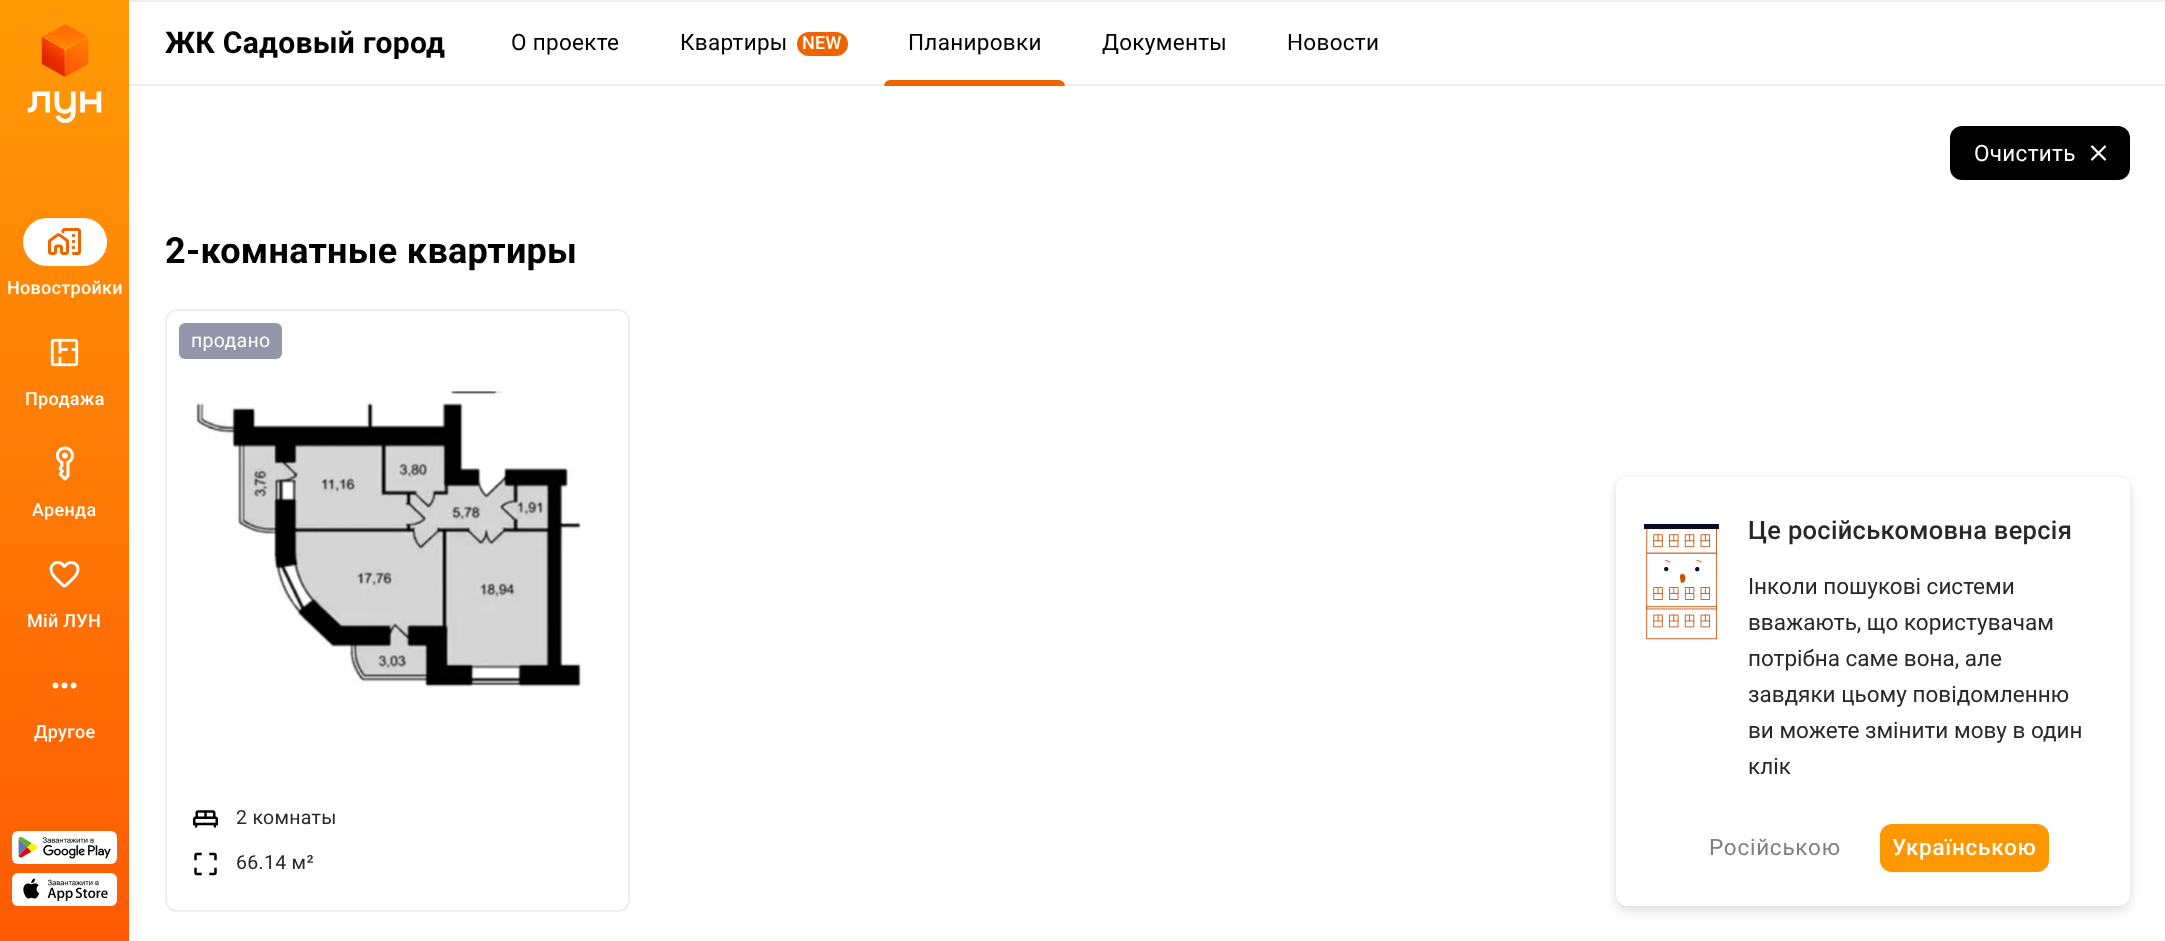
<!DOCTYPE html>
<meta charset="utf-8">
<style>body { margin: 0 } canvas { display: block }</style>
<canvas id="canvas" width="2165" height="941"></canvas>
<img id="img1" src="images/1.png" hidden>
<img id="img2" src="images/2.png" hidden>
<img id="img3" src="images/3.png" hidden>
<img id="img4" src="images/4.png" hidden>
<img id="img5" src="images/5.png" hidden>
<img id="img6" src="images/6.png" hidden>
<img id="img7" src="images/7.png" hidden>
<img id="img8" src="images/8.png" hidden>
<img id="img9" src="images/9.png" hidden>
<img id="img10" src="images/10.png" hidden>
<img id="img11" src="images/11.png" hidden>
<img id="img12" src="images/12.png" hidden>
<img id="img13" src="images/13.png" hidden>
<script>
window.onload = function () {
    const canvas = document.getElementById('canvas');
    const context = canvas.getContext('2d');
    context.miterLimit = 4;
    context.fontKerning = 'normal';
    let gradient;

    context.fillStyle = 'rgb(255, 255, 255)';
    context.fillRect(0, 0, 2165, 941);
    gradient = context.createLinearGradient(64, 0, 65, 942);
    gradient.addColorStop(0, 'rgb(255, 155, 6)');
    gradient.addColorStop(1, 'rgb(255, 90, 3)');
    context.fillStyle = gradient;
    context.fillRect(0, 0, 129, 941);
    context.drawImage(document.getElementById('img1'), 27, 24, 75, 99);
    context.fillStyle = 'rgb(255, 255, 255)';
    context.beginPath();
    context.roundRect(23, 218, 84, 48, 24);
    context.fill();
    context.drawImage(document.getElementById('img2'), 48, 228, 33, 27);
    context.drawImage(document.getElementById('img3'), 50, 338, 29, 29);
    context.drawImage(document.getElementById('img4'), 55, 446, 19, 35);
    context.drawImage(document.getElementById('img5'), 49, 561, 31, 27);
    context.drawImage(document.getElementById('img6'), 52, 682, 25, 7);
    context.beginPath();
    context.roundRect(12, 831, 105, 33, 6);
    context.fill();
    context.drawImage(document.getElementById('img7'), 18, 837, 93, 22);
    context.beginPath();
    context.roundRect(12, 873, 105, 33, 6);
    context.fill();
    context.drawImage(document.getElementById('img8'), 23, 878, 85, 23);
    context.fillStyle = 'rgb(235, 238, 244)';
    context.fillRect(129, 0, 2036, 2);
    context.fillRect(129, 84, 2036, 2);
    context.fillStyle = 'rgb(240, 100, 0)';
    context.beginPath();
    context.roundRect(797, 32, 51, 24, 12);
    context.fill();
    context.beginPath();
    context.roundRect(884, 80, 181, 6, [6, 6, 0, 0]);
    context.fill();
    context.fillStyle = 'rgb(0, 0, 0)';
    context.beginPath();
    context.roundRect(1950, 126, 180, 54, 12);
    context.fill();
    context.drawImage(document.getElementById('img9'), 2090, 145, 17, 16);
    context.beginPath();
    context.roundRect(166, 310, 463, 601, 11);
    context.strokeStyle = 'rgb(235, 238, 244)';
    context.lineWidth = 2;
    context.stroke();
    context.fillStyle = 'rgb(147, 150, 168)';
    context.beginPath();
    context.roundRect(179, 323, 103, 36, 6);
    context.fill();
    context.drawImage(document.getElementById('img10'), 196, 391, 387, 298);
    context.drawImage(document.getElementById('img11'), 193, 810, 25, 18);
    context.drawImage(document.getElementById('img12'), 194, 852, 23, 24);
    context.fillStyle = 'rgba(0, 0, 0, 0.1)';
    context.filter = 'blur(6px)';
    context.beginPath();
    context.roundRect(1616, 483, 514, 429, 12);
    context.fill();
    context.filter = 'none';
    context.fillStyle = 'rgba(0, 0, 0, 0.05)';
    context.filter = 'blur(3px)';
    context.beginPath();
    context.roundRect(1616, 477, 514, 429, 12);
    context.fill();
    context.filter = 'none';
    context.fillStyle = 'rgb(255, 255, 255)';
    context.beginPath();
    context.roundRect(1616, 477, 514, 429, 12);
    context.fill();
    context.drawImage(document.getElementById('img13'), 1644, 524, 75, 116);
    context.fillStyle = 'rgb(255, 152, 0)';
    context.beginPath();
    context.roundRect(1880, 824, 169, 48, 12);
    context.fill();
    context.letterSpacing = '0.3px';
    context.font = '500 18px Roboto';
    context.fillStyle = 'rgb(255, 255, 255)';
    context.fillText('Новостройки', 7, 294);
    context.fillText('Продажа', 25, 405);
    context.fillText('Аренда', 32, 516);
    context.fillText('Мій ЛУН', 27, 627);
    context.fillText('Другое', 34, 738);
    context.font = 'bold 30px Roboto';
    context.fillStyle = 'rgb(0, 0, 0)';
    context.fillText('ЖК Садовый город', 165, 53);
    context.font = '22.5px Roboto';
    context.fillText('О проекте', 511, 50);
    context.fillText('Квартиры', 680, 50);
    context.font = '500 18px Roboto';
    context.fillStyle = 'rgb(255, 255, 255)';
    context.fillText('NEW', 802, 49);
    context.font = '22.5px Roboto';
    context.fillStyle = 'rgb(0, 0, 0)';
    context.fillText('Планировки', 908, 50);
    context.fillText('Документы', 1102, 50);
    context.fillText('Новости', 1287, 50);
    context.fillStyle = 'rgb(255, 255, 255)';
    context.fillText('Очистить', 1974, 161);
    context.font = 'bold 36px Roboto';
    context.fillStyle = 'rgb(0, 0, 0)';
    context.fillText('2-комнатные квартиры', 165, 263);
    context.font = '19.5px Roboto';
    context.fillStyle = 'rgb(255, 255, 255)';
    context.fillText('продано', 191, 347);
    context.fillStyle = 'rgb(40, 40, 40)';
    context.fillText('2 комнаты', 236, 824);
    context.fillText('66.14 м²', 236, 869);
    context.font = '500 25.5px Roboto';
    context.fillText('Це російськомовна версія', 1748, 539);
    context.letterSpacing = '0px';
    context.font = '22.5px Roboto';
    context.fillText('Інколи пошукові системи', 1748, 594);
    context.fillText('вважають, що користувачам', 1748, 630);
    context.fillText('потрібна саме вона, але', 1748, 666);
    context.fillText('завдяки цьому повідомленню', 1748, 702);
    context.fillText('ви можете змінити мову в один', 1748, 738);
    context.fillText('клік', 1748, 774);
    context.letterSpacing = '0.75px';
    context.fillStyle = 'rgb(128, 128, 128)';
    context.fillText('Російською', 1709, 855);
    context.font = '500 22.5px Roboto';
    context.fillStyle = 'rgb(255, 255, 255)';
    context.fillText('Українською', 1892, 855);
};
</script>
